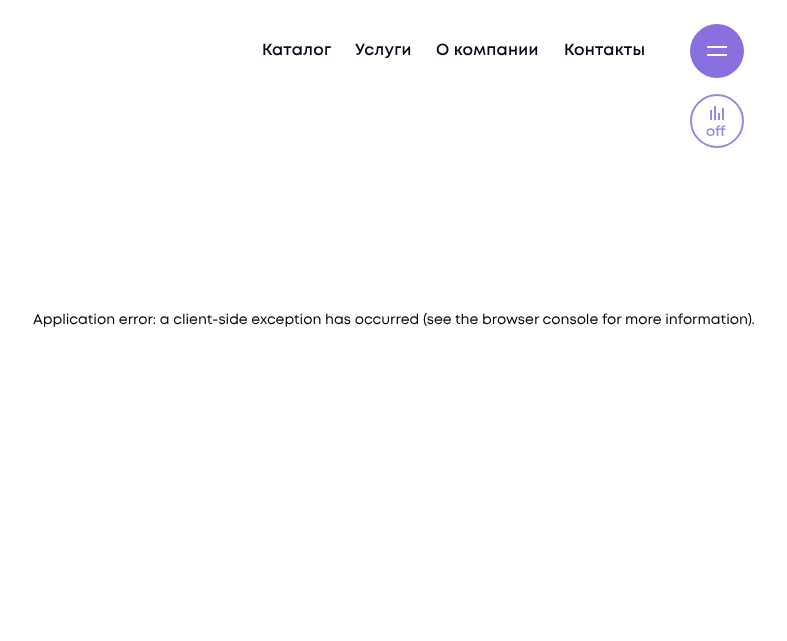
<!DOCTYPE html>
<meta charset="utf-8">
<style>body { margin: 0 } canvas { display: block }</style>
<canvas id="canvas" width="787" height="641"></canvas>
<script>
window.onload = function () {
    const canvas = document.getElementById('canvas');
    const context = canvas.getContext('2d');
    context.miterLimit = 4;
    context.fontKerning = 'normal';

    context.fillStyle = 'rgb(255, 255, 255)';
    context.fillRect(0, 0, 787, 641);
    context.fillStyle = 'rgb(138, 111, 222)';
    context.beginPath();
    context.arc(717, 51, 27, 0, 2 * Math.PI);
    context.fill();
    context.fillStyle = 'rgb(255, 255, 255)';
    context.fillRect(707, 46, 20, 2);
    context.fillRect(707, 54, 20, 2);
    context.beginPath();
    context.arc(717, 121, 26, 0, 2 * Math.PI);
    context.strokeStyle = 'rgb(157, 134, 227)';
    context.lineWidth = 2;
    context.stroke();
    context.fillStyle = 'rgb(157, 134, 227)';
    context.fillRect(710, 110, 2, 10);
    context.fillRect(714, 106, 2, 14);
    context.fillRect(718, 113, 2, 7);
    context.fillRect(722, 108, 2, 12);
    context.letterSpacing = '0.25px';
    context.font = '600 16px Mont';
    context.fillStyle = 'rgb(11, 5, 25)';
    context.fillText('Каталог', 262, 55);
    context.fillText('Услуги', 355, 55);
    context.fillText('О компании', 436, 55);
    context.fillText('Контакты', 564, 55);
    context.letterSpacing = '0px';
    context.font = '600 14px Mont';
    context.fillStyle = 'rgb(157, 134, 227)';
    context.fillText('off', 706, 136);
    context.font = '14px Mont';
    context.fillStyle = 'rgb(0, 0, 0)';
    context.fillText('Application error: a client-side exception has occurred (see the browser console for more information).', 33, 324);
};
</script>
